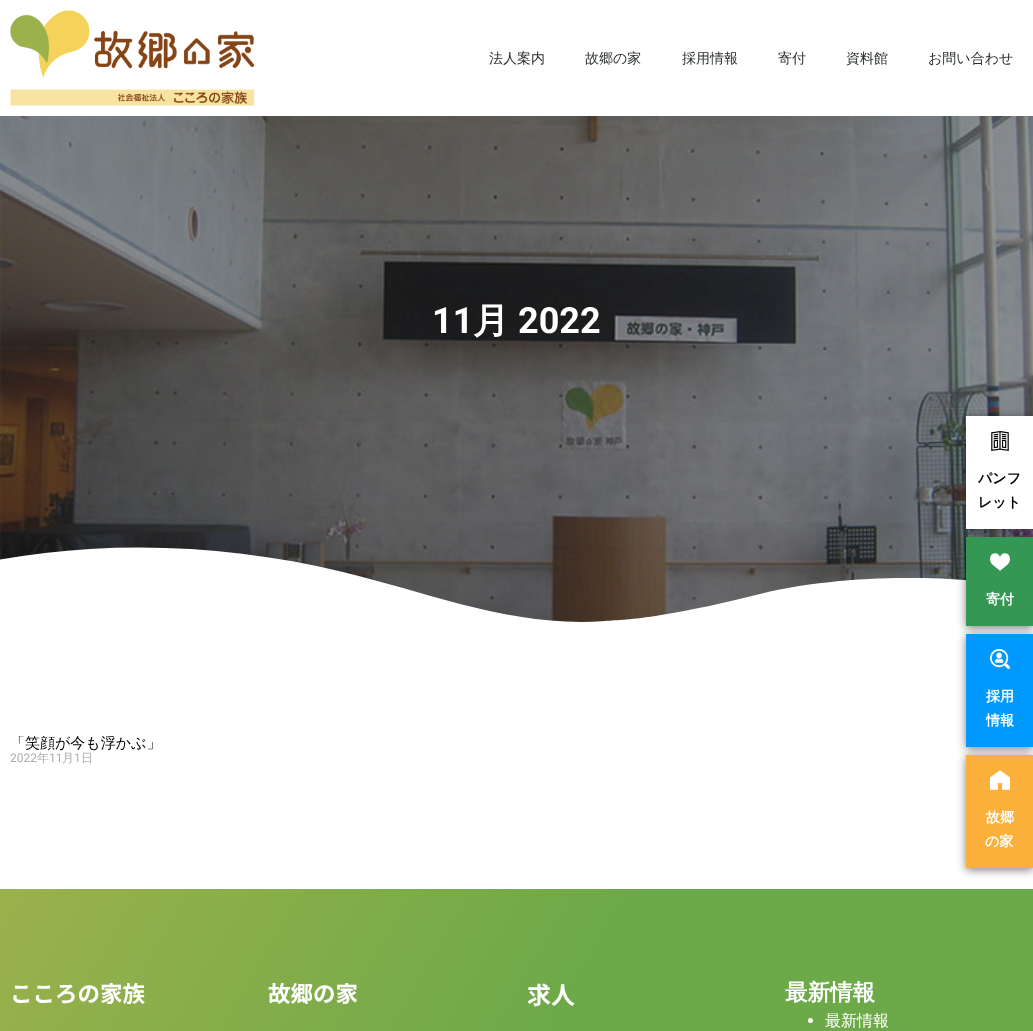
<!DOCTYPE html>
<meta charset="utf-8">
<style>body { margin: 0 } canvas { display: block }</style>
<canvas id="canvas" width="1033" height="1031"></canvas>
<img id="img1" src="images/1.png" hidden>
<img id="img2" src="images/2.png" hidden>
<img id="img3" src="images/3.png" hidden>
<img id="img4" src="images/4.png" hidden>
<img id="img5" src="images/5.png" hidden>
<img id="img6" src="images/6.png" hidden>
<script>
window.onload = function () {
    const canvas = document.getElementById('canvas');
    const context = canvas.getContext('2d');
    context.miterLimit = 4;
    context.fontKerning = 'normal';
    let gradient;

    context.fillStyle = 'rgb(255, 255, 255)';
    context.fillRect(0, 0, 1033, 1031);
    context.drawImage(document.getElementById('img1'), 10, 10, 245, 96);
    context.drawImage(document.getElementById('img2'), 0, 116, 1033, 506);
    context.beginPath();
    context.moveTo(605, 621);
    context.bezierCurveTo(514, 628, 430, 593, 343, 572);
    context.bezierCurveTo(260, 552, 175, 544, 90, 549);
    context.bezierCurveTo(42, 552, -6, 559, -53, 571);
    context.lineTo(-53, 626);
    context.lineTo(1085, 626);
    context.lineTo(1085, 602);
    context.bezierCurveTo(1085, 602, 1003, 576, 905, 578);
    context.bezierCurveTo(860, 578, 799, 583, 752, 596);
    context.bezierCurveTo(728, 602, 693, 610, 661, 615);
    context.bezierCurveTo(631, 620, 617, 620, 605, 621);
    context.closePath();
    context.fill();
    gradient = context.createLinearGradient(36, 827, 997, 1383);
    gradient.addColorStop(0, 'rgb(155, 177, 76)');
    gradient.addColorStop(0.5, 'rgb(108, 169, 72)');
    context.fillStyle = gradient;
    context.fillRect(0, 889, 1033, 142);
    context.fillStyle = 'rgb(255, 255, 255)';
    context.beginPath();
    context.arc(810.5, 1020.5, 2.5, 0, 2 * Math.PI);
    context.fill();
    context.fillStyle = 'rgba(0, 0, 0, 0.5)';
    context.filter = 'blur(5px)';
    context.beginPath();
    context.rect(966, 418, 67, 113);
    context.fill();
    context.filter = 'none';
    context.fillStyle = 'rgb(255, 255, 255)';
    context.fillRect(966, 416, 67, 113);
    context.drawImage(document.getElementById('img3'), 991, 431, 18, 20);
    context.fillStyle = 'rgba(0, 0, 0, 0.5)';
    context.filter = 'blur(5px)';
    context.beginPath();
    context.rect(966, 539, 67, 89);
    context.fill();
    context.filter = 'none';
    context.fillStyle = 'rgb(53, 151, 84)';
    context.fillRect(966, 537, 67, 89);
    context.drawImage(document.getElementById('img4'), 990, 553, 20, 18);
    context.fillStyle = 'rgba(0, 0, 0, 0.5)';
    context.filter = 'blur(5px)';
    context.beginPath();
    context.rect(966, 636, 67, 113);
    context.fill();
    context.filter = 'none';
    context.fillStyle = 'rgb(0, 153, 255)';
    context.fillRect(966, 634, 67, 113);
    context.drawImage(document.getElementById('img5'), 990, 649, 20, 20);
    context.fillStyle = 'rgba(0, 0, 0, 0.5)';
    context.filter = 'blur(5px)';
    context.beginPath();
    context.rect(966, 757, 67, 113);
    context.fill();
    context.filter = 'none';
    context.fillStyle = 'rgb(251, 176, 59)';
    context.fillRect(966, 755, 67, 113);
    context.drawImage(document.getElementById('img6'), 990, 770, 20, 20);
    context.font = '500 14px WenQuanYi Zen Hei';
    context.fillStyle = 'rgb(42, 48, 47)';
    context.fillText('法人案内', 489, 63);
    context.fillText('故郷の家', 585, 63);
    context.fillText('採用情報', 682, 63);
    context.fillText('寄付', 778, 63);
    context.fillText('資料館', 846, 63);
    context.fillText('お問い合わせ', 928, 63);
    context.font = 'bold 36px Roboto';
    context.fillStyle = 'rgb(255, 255, 255)';
    context.fillText('11', 432, 333);
    context.font = 'bold 36px WenQuanYi Zen Hei';
    context.fillText('月', 473, 333);
    context.font = 'bold 36px Roboto';
    context.fillText('2022', 518, 333);
    context.save();
    context.beginPath();
    context.rect(10, 736, 1013, 43);
    context.clip();
    context.font = '500 15px WenQuanYi Zen Hei';
    context.fillStyle = 'rgb(0, 0, 0)';
    context.fillText('「笑顔が今も浮かぶ」', 10, 748);
    context.restore();
    context.font = '12px Roboto';
    context.fillStyle = 'rgb(173, 173, 173)';
    context.fillText('2022', 10, 762);
    context.font = '500 12px WenQuanYi Zen Hei';
    context.fillText('年', 37, 762);
    context.font = '12px Roboto';
    context.fillText('11', 49, 762);
    context.font = '500 12px WenQuanYi Zen Hei';
    context.fillText('月', 62, 762);
    context.font = '12px Roboto';
    context.fillText('1', 74, 762);
    context.font = '500 12px WenQuanYi Zen Hei';
    context.fillText('日', 81, 762);
    context.font = 'bold 22.5px Noto Sans JP';
    context.fillStyle = 'rgb(255, 255, 255)';
    context.fillText('こころの家族', 10, 1002);
    context.fillText('故郷の家', 268, 1002);
    context.font = 'bold 24px Noto Sans JP';
    context.fillText('求人', 527, 1004);
    context.font = 'bold 22.5px WenQuanYi Zen Hei';
    context.fillText('最新情報', 785, 1000);
    context.font = '500 16px WenQuanYi Zen Hei';
    context.fillText('最新情報', 825, 1026);
    context.font = 'bold 14px WenQuanYi Zen Hei';
    context.fillStyle = 'rgb(0, 0, 0)';
    context.fillText('パンフ', 978, 483);
    context.fillText('レット', 978, 507);
    context.fillStyle = 'rgb(255, 255, 255)';
    context.fillText('寄付', 986, 604);
    context.fillText('採用', 986, 701);
    context.fillText('情報', 986, 725);
    context.fillText('故郷', 986, 822);
    context.fillText('の家', 985, 846);
};
</script>
